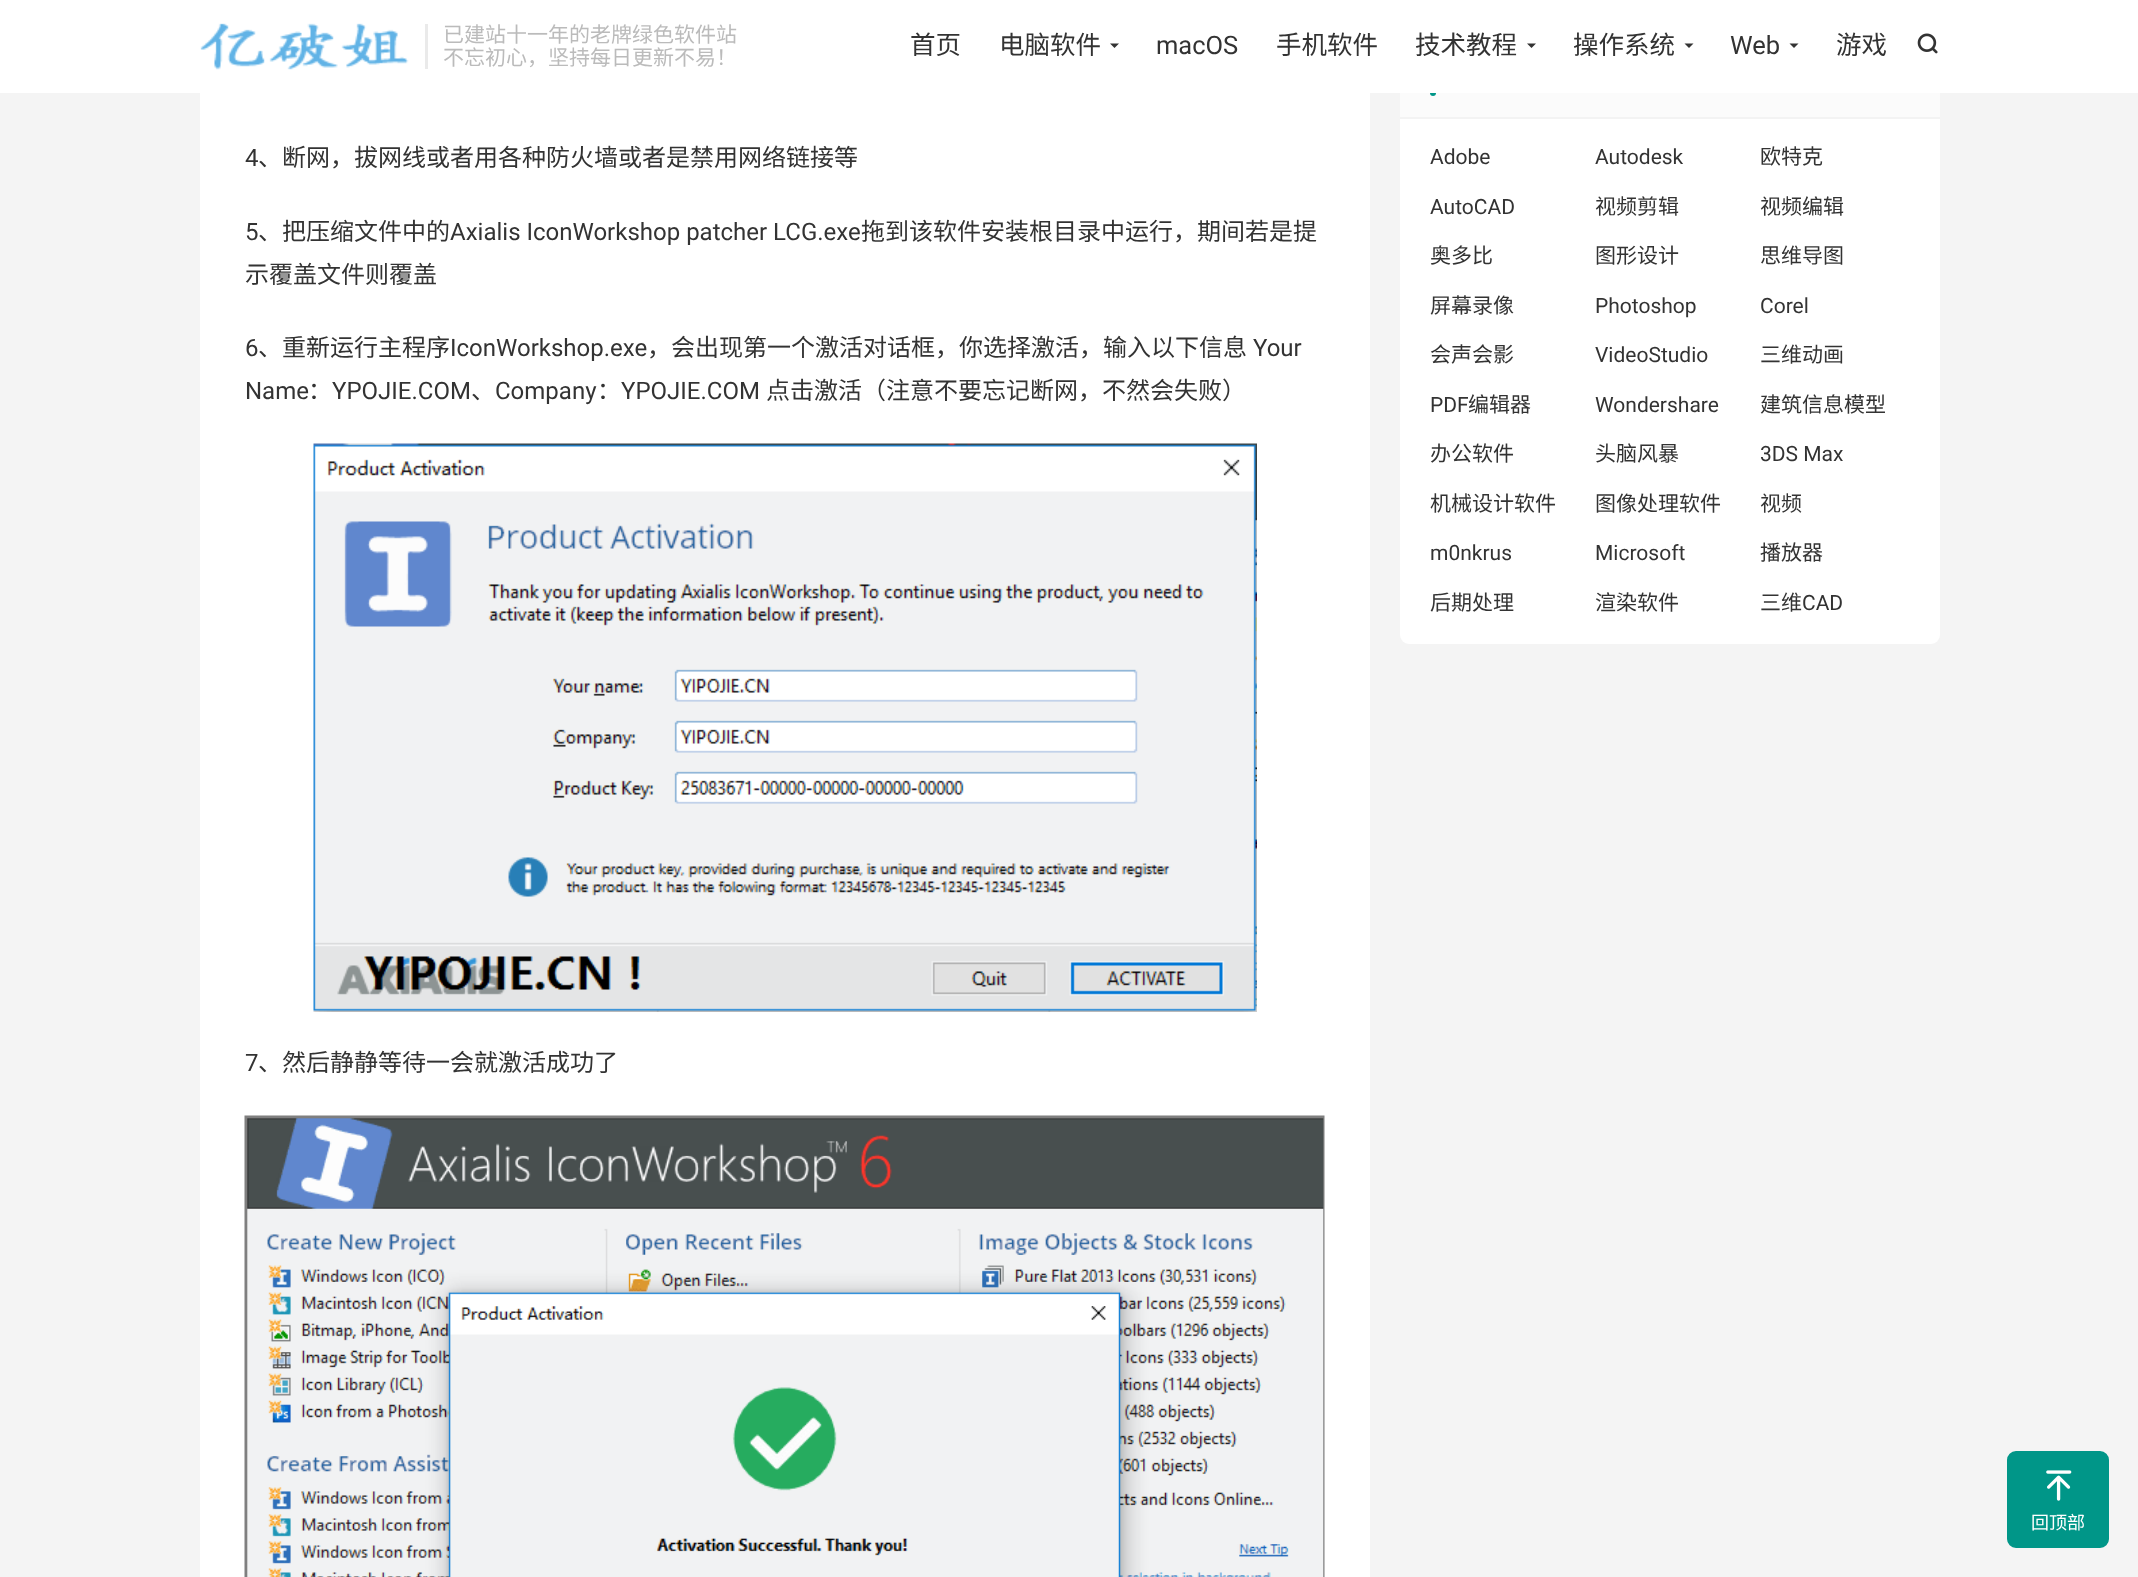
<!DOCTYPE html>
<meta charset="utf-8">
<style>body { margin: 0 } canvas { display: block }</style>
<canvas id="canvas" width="2138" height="1577"></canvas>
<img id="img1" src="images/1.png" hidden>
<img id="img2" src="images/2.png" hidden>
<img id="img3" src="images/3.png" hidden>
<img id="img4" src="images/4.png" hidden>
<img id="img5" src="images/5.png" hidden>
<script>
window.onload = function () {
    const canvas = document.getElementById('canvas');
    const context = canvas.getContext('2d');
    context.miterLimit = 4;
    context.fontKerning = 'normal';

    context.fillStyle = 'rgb(244, 244, 244)';
    context.fillRect(0, 0, 2138, 1577);
    context.fillStyle = 'rgb(255, 255, 255)';
    context.beginPath();
    context.roundRect(1400, 53, 540, 591, 9);
    context.fill();
    context.fillStyle = 'rgb(251, 251, 251)';
    context.fillRect(1400, 93, 540, 24);
    context.fillStyle = 'rgb(0, 150, 136)';
    context.beginPath();
    context.roundRect(1430, 74, 6, 22, 3);
    context.fill();
    context.fillStyle = 'rgb(255, 255, 255)';
    context.fillRect(0, 0, 2138, 93);
    context.drawImage(document.getElementById('img1'), 200, 23, 209, 47);
    context.fillStyle = 'rgb(234, 234, 234)';
    context.fillRect(425, 24, 3, 45);
    context.fillStyle = 'rgb(51, 51, 51)';
    context.beginPath();
    context.moveTo(1110, 43.5);
    context.lineTo(1119, 43.5);
    context.lineTo(1114.5, 48);
    context.closePath();
    context.fill();
    context.beginPath();
    context.moveTo(1527, 43.5);
    context.lineTo(1536, 43.5);
    context.lineTo(1531.5, 48);
    context.closePath();
    context.fill();
    context.beginPath();
    context.moveTo(1684.5, 43.5);
    context.lineTo(1693.5, 43.5);
    context.lineTo(1689, 48);
    context.closePath();
    context.fill();
    context.beginPath();
    context.moveTo(1789.5, 43.5);
    context.lineTo(1798.5, 43.5);
    context.lineTo(1794, 48);
    context.closePath();
    context.fill();
    context.drawImage(document.getElementById('img2'), 1917, 33, 21, 21);
    context.fillStyle = 'rgb(255, 255, 255)';
    context.fillRect(200, 93, 1170, 1484);
    context.drawImage(document.getElementById('img3'), 313, 443, 944, 569);
    context.drawImage(document.getElementById('img4'), 244, 1115, 1081, 462);
    context.fillStyle = 'rgb(243, 243, 243)';
    context.fillRect(1400, 117, 540, 2);
    context.fillStyle = 'rgb(0, 150, 136)';
    context.beginPath();
    context.roundRect(2008, 1452, 100, 95, 8);
    context.fill();
    context.strokeStyle = 'rgb(0, 150, 136)';
    context.lineWidth = 2;
    context.stroke();
    context.drawImage(document.getElementById('img5'), 2046, 1470, 26, 31);
    context.font = '21px Noto Sans CJK SC';
    context.fillStyle = 'rgb(187, 187, 187)';
    context.fillText('已建站十一年的老牌绿色软件站', 443, 42);
    context.fillText('不忘初心，坚持每日更新不易！', 443, 65);
    context.font = '25.5px Noto Sans CJK SC';
    context.fillStyle = 'rgb(51, 51, 51)';
    context.fillText('首页', 910, 54);
    context.fillText('电脑软件', 999, 54);
    context.font = '25.5px Roboto';
    context.fillText('macOS', 1156, 54);
    context.font = '25.5px Noto Sans CJK SC';
    context.fillText('手机软件', 1276, 54);
    context.fillText('技术教程', 1415, 54);
    context.fillText('操作系统', 1573, 54);
    context.font = '25.5px Roboto';
    context.fillText('Web', 1730, 54);
    context.font = '25.5px Noto Sans CJK SC';
    context.fillText('游戏', 1836, 54);
    context.font = '24px Roboto';
    context.fillText('4', 245, 166);
    context.font = '24px Noto Sans CJK SC';
    context.fillText('、断网，拔网线或者用各种防火墙或者是禁用网络链接等', 258, 166);
    context.font = '24px Roboto';
    context.fillText('5', 245, 240);
    context.font = '24px Noto Sans CJK SC';
    context.fillText('、把压缩文件中的', 258, 240);
    context.font = '24px Roboto';
    context.fillText('Axialis IconWorkshop patcher LCG.exe', 450, 240);
    context.font = '24px Noto Sans CJK SC';
    context.fillText('拖到该软件安装根目录中运行，期间若是提', 861, 240);
    context.fillText('示覆盖文件则覆盖', 245, 283);
    context.font = '24px Roboto';
    context.fillText('6', 245, 356);
    context.font = '24px Noto Sans CJK SC';
    context.fillText('、重新运行主程序', 258, 356);
    context.font = '24px Roboto';
    context.fillText('IconWorkshop.exe', 450, 356);
    context.font = '24px Noto Sans CJK SC';
    context.fillText('，会出现第一个激活对话框，你选择激活，输入以下信息', 647, 356);
    context.font = '24px Roboto';
    context.fillText('Your', 1253, 356);
    context.fillText('Name', 245, 399);
    context.font = '24px Noto Sans CJK SC';
    context.fillText('：', 308, 399);
    context.font = '24px Roboto';
    context.fillText('YPOJIE.COM', 332, 399);
    context.font = '24px Noto Sans CJK SC';
    context.fillText('、', 471, 399);
    context.font = '24px Roboto';
    context.fillText('Company', 495, 399);
    context.font = '24px Noto Sans CJK SC';
    context.fillText('：', 597, 399);
    context.font = '24px Roboto';
    context.fillText('YPOJIE.COM', 621, 399);
    context.font = '24px Noto Sans CJK SC';
    context.fillText('点击激活（注意不要忘记断网，不然会失败）', 766, 399);
    context.font = '24px Roboto';
    context.fillText('7', 245, 1071);
    context.font = '24px Noto Sans CJK SC';
    context.fillText('、然后静静等待一会就激活成功了', 258, 1071);
    context.font = '21px Roboto';
    context.fillText('Adobe', 1430, 164);
    context.fillText('Autodesk', 1595, 164);
    context.font = '21px Noto Sans CJK SC';
    context.fillText('欧特克', 1760, 164);
    context.font = '21px Roboto';
    context.fillText('AutoCAD', 1430, 214);
    context.font = '21px Noto Sans CJK SC';
    context.fillText('视频剪辑', 1595, 214);
    context.fillText('视频编辑', 1760, 214);
    context.fillText('奥多比', 1430, 263);
    context.fillText('图形设计', 1595, 263);
    context.fillText('思维导图', 1760, 263);
    context.fillText('屏幕录像', 1430, 313);
    context.font = '21px Roboto';
    context.fillText('Photoshop', 1595, 313);
    context.fillText('Corel', 1760, 313);
    context.font = '21px Noto Sans CJK SC';
    context.fillText('会声会影', 1430, 362);
    context.font = '21px Roboto';
    context.fillText('VideoStudio', 1595, 362);
    context.font = '21px Noto Sans CJK SC';
    context.fillText('三维动画', 1760, 362);
    context.font = '21px Roboto';
    context.fillText('PDF', 1430, 412);
    context.font = '21px Noto Sans CJK SC';
    context.fillText('编辑器', 1468, 412);
    context.font = '21px Roboto';
    context.fillText('Wondershare', 1595, 412);
    context.font = '21px Noto Sans CJK SC';
    context.fillText('建筑信息模型', 1760, 412);
    context.fillText('办公软件', 1430, 461);
    context.fillText('头脑风暴', 1595, 461);
    context.font = '21px Roboto';
    context.fillText('3DS Max', 1760, 461);
    context.font = '21px Noto Sans CJK SC';
    context.fillText('机械设计软件', 1430, 511);
    context.fillText('图像处理软件', 1595, 511);
    context.fillText('视频', 1760, 511);
    context.font = '21px Roboto';
    context.fillText('m0nkrus', 1430, 560);
    context.fillText('Microsoft', 1595, 560);
    context.font = '21px Noto Sans CJK SC';
    context.fillText('播放器', 1760, 560);
    context.fillText('后期处理', 1430, 610);
    context.fillText('渲染软件', 1595, 610);
    context.fillText('三维', 1760, 610);
    context.font = '21px Roboto';
    context.fillText('CAD', 1802, 610);
    context.font = '18px Noto Sans CJK SC';
    context.fillStyle = 'rgb(255, 255, 255)';
    context.fillText('回顶部', 2031, 1529);
};
</script>
